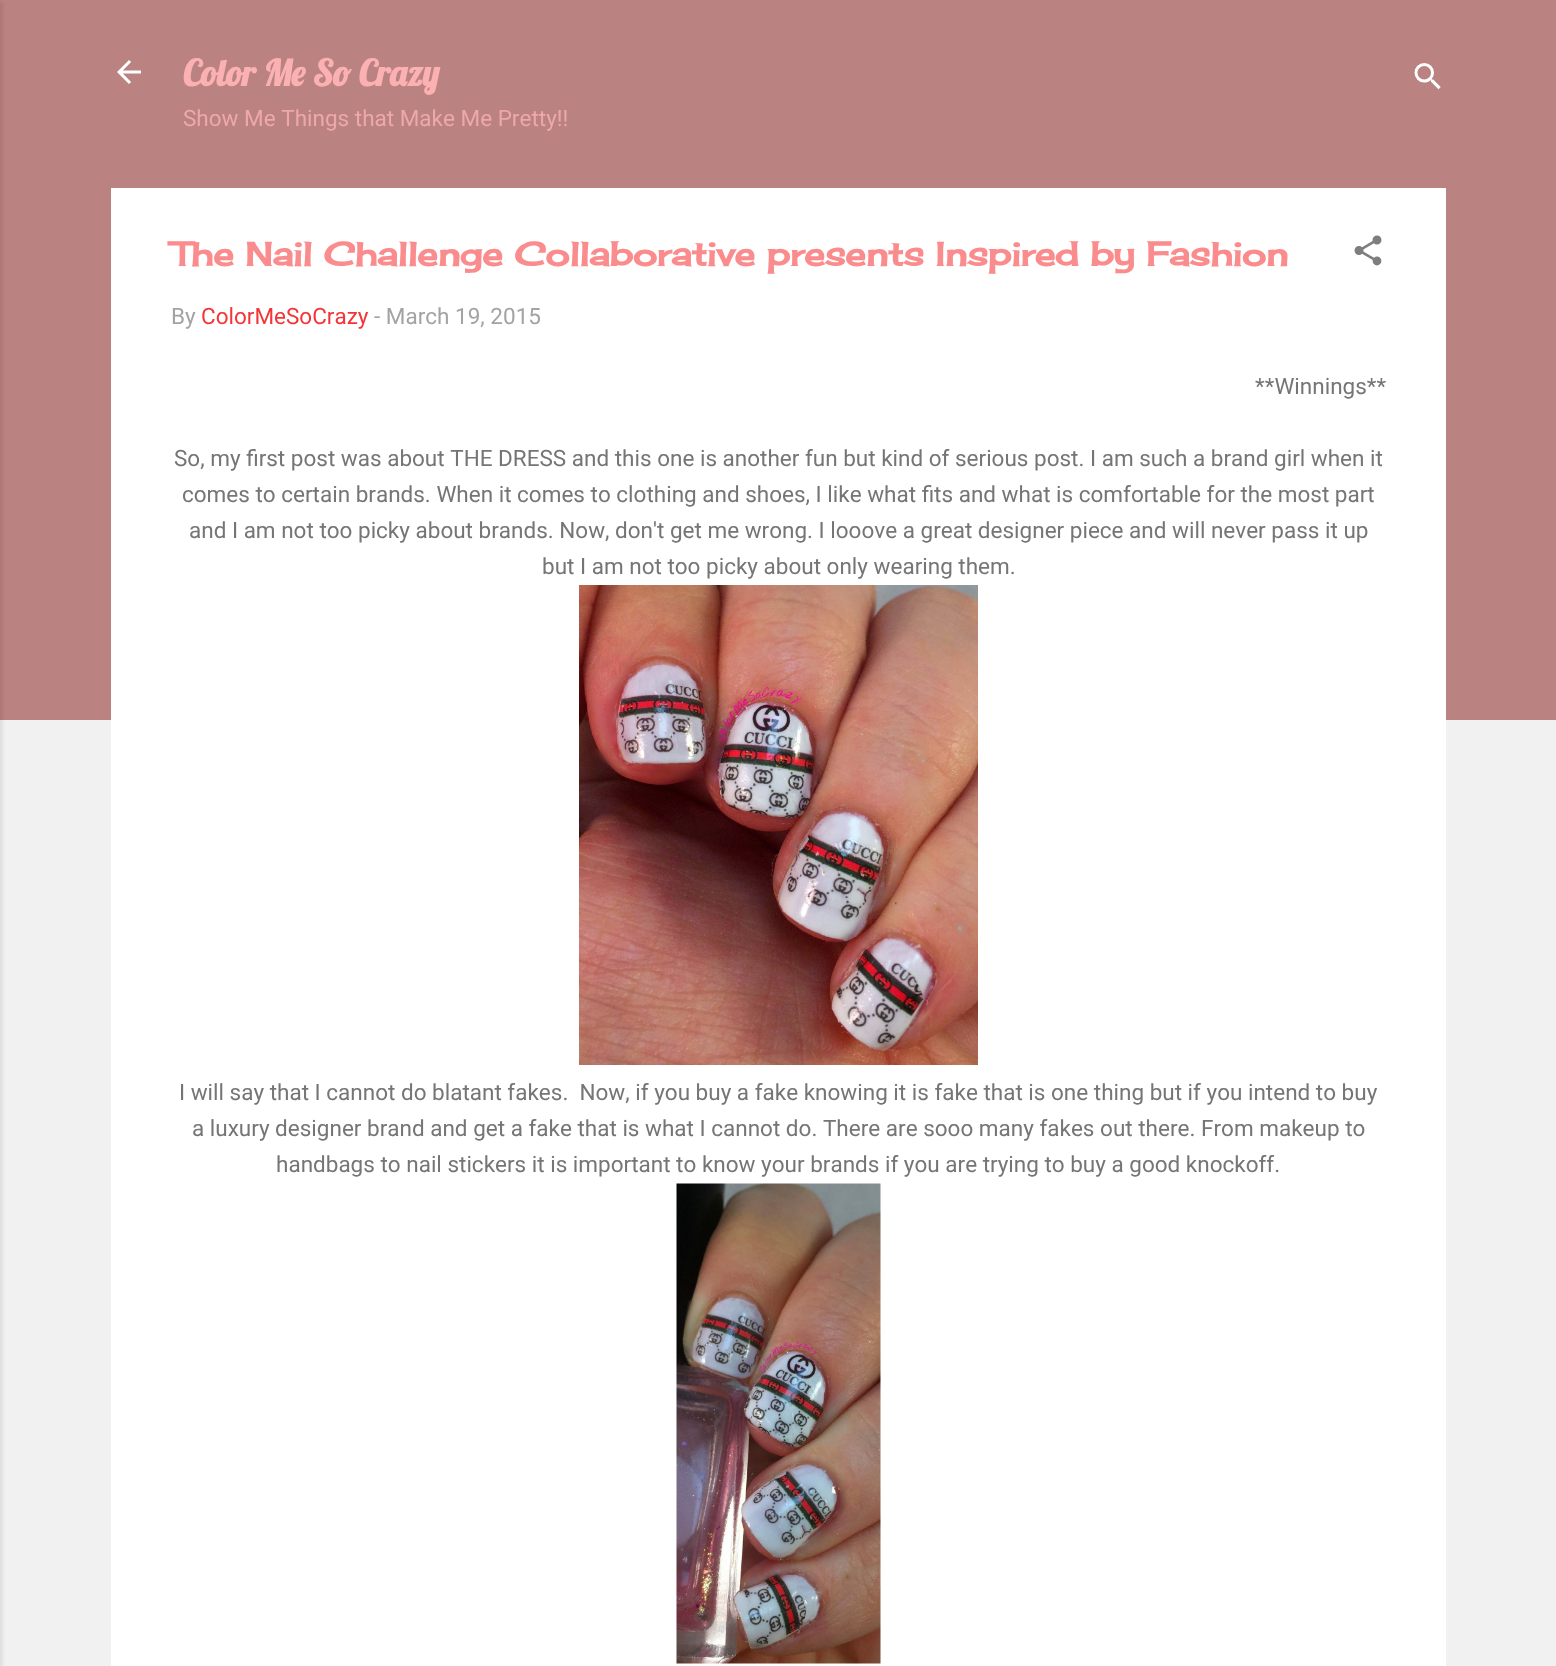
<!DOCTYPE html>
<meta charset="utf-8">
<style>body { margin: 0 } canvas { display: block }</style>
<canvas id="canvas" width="1556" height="1666"></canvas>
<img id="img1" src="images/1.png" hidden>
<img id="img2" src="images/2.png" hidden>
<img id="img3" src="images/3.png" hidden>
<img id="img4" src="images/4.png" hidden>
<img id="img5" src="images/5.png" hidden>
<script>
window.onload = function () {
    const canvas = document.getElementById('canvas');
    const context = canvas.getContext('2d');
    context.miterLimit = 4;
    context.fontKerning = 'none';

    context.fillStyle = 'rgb(241, 241, 241)';
    context.fillRect(0, 0, 1556, 1666);
    context.fillStyle = 'rgb(187, 130, 130)';
    context.fillRect(0, 0, 1556, 720);
    context.fillStyle = 'rgba(0, 0, 0, 0.1)';
    context.filter = 'blur(2px)';
    context.beginPath();
    context.rect(-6, 2, 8, 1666);
    context.fill();
    context.filter = 'none';
    context.drawImage(document.getElementById('img1'), 117, 60, 24, 24);
    context.drawImage(document.getElementById('img2'), 1414, 63, 27, 27);
    context.fillStyle = 'rgb(255, 255, 255)';
    context.fillRect(111, 188, 1335, 1478);
    context.drawImage(document.getElementById('img3'), 1354, 235, 28, 31);
    context.drawImage(document.getElementById('img4'), 579, 585, 399, 480);
    context.drawImage(document.getElementById('img5'), 676, 1183, 205, 481);
    context.font = 'bold 36px Lobster';
    context.fillStyle = 'rgb(251, 177, 178)';
    context.fillText('Color Me So Crazy', 183, 86);
    context.font = '22.5px Roboto';
    context.fillStyle = 'rgb(238, 168, 168)';
    context.fillText('Show Me Things that Make Me Pretty!!', 183, 126);
    context.font = 'bold 33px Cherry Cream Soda';
    context.fillStyle = 'rgb(251, 140, 141)';
    context.fillText('The Nail Challenge Collaborative presents Inspired by Fashion', 171, 266);
    context.font = '22.5px Roboto';
    context.fillStyle = 'rgb(163, 163, 163)';
    context.fillText('By', 171, 324);
    context.fillStyle = 'rgb(244, 52, 54)';
    context.fillText('ColorMeSoCrazy', 201, 324);
    context.fillStyle = 'rgb(163, 163, 163)';
    context.fillText('- March 19, 2015', 374, 324);
    context.fillStyle = 'rgb(117, 117, 117)';
    context.fillText('**Winnings**', 1255, 394);
    context.fillText('So, my first post was about THE DRESS and this one is another fun but kind of serious post. I am such a brand girl when it', 174, 466);
    context.fillText('comes to certain brands. When it comes to clothing and shoes, I like what fits and what is comfortable for the most part', 182, 502);
    context.fillText('and I am not too picky about brands. Now, don\'t get me wrong. I looove a great designer piece and will never pass it up', 189, 538);
    context.fillText('but I am not too picky about only wearing them.', 542, 574);
    context.fillText('I will say that I cannot do blatant fakes.  Now, if you buy a fake knowing it is fake that is one thing but if you intend to buy', 179, 1100);
    context.fillText('a luxury designer brand and get a fake that is what I cannot do. There are sooo many fakes out there. From makeup to', 192, 1136);
    context.fillText('handbags to nail stickers it is important to know your brands if you are trying to buy a good knockoff.', 276, 1172);
};
</script>
